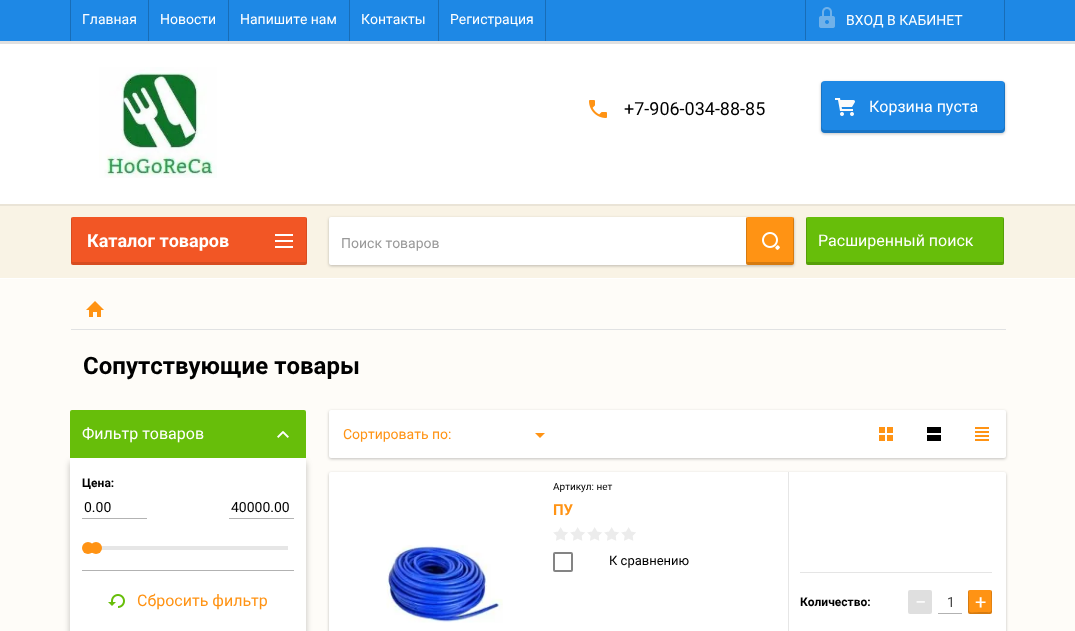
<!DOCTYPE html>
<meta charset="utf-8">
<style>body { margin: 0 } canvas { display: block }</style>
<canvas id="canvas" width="1075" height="631"></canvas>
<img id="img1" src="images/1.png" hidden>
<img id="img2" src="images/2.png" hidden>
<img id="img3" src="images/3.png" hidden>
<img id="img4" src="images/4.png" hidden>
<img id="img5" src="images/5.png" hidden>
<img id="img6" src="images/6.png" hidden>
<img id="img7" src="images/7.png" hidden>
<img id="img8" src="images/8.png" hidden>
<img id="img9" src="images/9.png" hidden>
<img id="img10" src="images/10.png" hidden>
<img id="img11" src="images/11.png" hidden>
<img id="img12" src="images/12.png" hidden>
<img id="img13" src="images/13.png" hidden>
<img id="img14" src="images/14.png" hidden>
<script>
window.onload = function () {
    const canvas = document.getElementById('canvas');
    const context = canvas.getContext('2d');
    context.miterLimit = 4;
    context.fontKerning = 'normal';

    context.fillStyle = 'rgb(254, 252, 248)';
    context.fillRect(0, 0, 1075, 631);
    context.fillStyle = 'rgb(255, 255, 255)';
    context.fillRect(0, 44, 1075, 160);
    context.fillStyle = 'rgb(224, 224, 224)';
    context.fillRect(0, 41, 1075, 3);
    context.fillStyle = 'rgb(30, 136, 229)';
    context.fillRect(0, 0, 1075, 41);
    context.fillStyle = 'rgb(24, 109, 183)';
    context.fillRect(70, 0, 1, 41);
    context.fillRect(148, 0, 1, 41);
    context.fillRect(228, 0, 1, 41);
    context.fillRect(349, 0, 1, 41);
    context.fillRect(438, 0, 1, 41);
    context.fillRect(545, 0, 1, 41);
    context.fillRect(805, 0, 1, 40);
    context.drawImage(document.getElementById('img1'), 819, 7, 16, 21);
    context.fillRect(1004, 0, 1, 40);
    context.drawImage(document.getElementById('img2'), 99, 67, 118, 111);
    context.drawImage(document.getElementById('img3'), 589, 100, 18, 18);
    context.fillStyle = 'rgba(0, 0, 0, 0.24)';
    context.filter = 'blur(1.5px)';
    context.beginPath();
    context.roundRect(821, 82, 184, 52, 4);
    context.fill();
    context.filter = 'none';
    context.fillStyle = 'rgb(30, 136, 229)';
    context.beginPath();
    context.roundRect(821, 81, 184, 52, 4);
    context.fill();
    context.fillStyle = 'rgba(0, 0, 0, 0.14)';
    context.beginPath();
    context.moveTo(822, 82);
    context.bezierCurveTo(821, 83, 821, 84, 821, 85);
    context.lineTo(821, 129);
    context.bezierCurveTo(821, 131, 823, 133, 825, 133);
    context.lineTo(1001, 133);
    context.bezierCurveTo(1003, 133, 1005, 131, 1005, 129);
    context.lineTo(1005, 85);
    context.bezierCurveTo(1005, 84, 1005, 83, 1004, 82);
    context.lineTo(1004, 120);
    context.bezierCurveTo(1004, 122, 1006, 130, 1001, 130);
    context.lineTo(825, 130);
    context.bezierCurveTo(820, 130, 822, 122, 822, 120);
    context.closePath();
    context.fill();
    context.drawImage(document.getElementById('img4'), 835, 98, 20, 18);
    context.fillStyle = 'rgb(255, 255, 255)';
    context.fillRect(0, 278, 1075, 1);
    context.fillStyle = 'rgb(249, 243, 229)';
    context.fillRect(0, 206, 1075, 72);
    context.fillStyle = 'rgb(234, 228, 215)';
    context.fillRect(0, 204, 1075, 2);
    context.fillStyle = 'rgb(242, 86, 37)';
    context.beginPath();
    context.roundRect(71, 217, 236, 48, 2);
    context.fill();
    context.fillStyle = 'rgba(0, 0, 0, 0.11)';
    context.beginPath();
    context.moveTo(72, 217);
    context.bezierCurveTo(71, 218, 71, 218, 71, 219);
    context.lineTo(71, 263);
    context.bezierCurveTo(71, 264, 72, 265, 73, 265);
    context.lineTo(305, 265);
    context.bezierCurveTo(306, 265, 307, 264, 307, 263);
    context.lineTo(307, 219);
    context.bezierCurveTo(307, 218, 307, 218, 306, 217);
    context.lineTo(306, 261);
    context.bezierCurveTo(306, 262, 306, 262, 305, 262);
    context.lineTo(73, 262);
    context.bezierCurveTo(72, 262, 72, 262, 72, 261);
    context.closePath();
    context.fill();
    context.drawImage(document.getElementById('img5'), 275, 234, 18, 14);
    context.fillStyle = 'rgba(0, 0, 0, 0.24)';
    context.filter = 'blur(3px)';
    context.beginPath();
    context.roundRect(70, 462, 236, 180, 2);
    context.fill();
    context.filter = 'none';
    context.fillStyle = 'rgb(103, 190, 10)';
    context.beginPath();
    context.roundRect(70, 410, 236, 48, [2, 2, 0, 0]);
    context.fill();
    context.drawImage(document.getElementById('img6'), 277, 431, 12, 7);
    context.fillStyle = 'rgb(255, 255, 255)';
    context.fillRect(70, 458, 236, 173);
    context.fillStyle = 'rgb(179, 179, 179)';
    context.fillRect(82, 518, 65, 1);
    context.fillRect(229, 518, 65, 1);
    context.fillStyle = 'rgb(255, 147, 20)';
    context.beginPath();
    context.arc(88, 548, 6, 0, 2 * Math.PI);
    context.fill();
    context.fillStyle = 'rgb(230, 230, 230)';
    context.fillRect(96, 546, 192, 4);
    context.fillStyle = 'rgb(255, 147, 20)';
    context.beginPath();
    context.arc(96, 548, 6, 0, 2 * Math.PI);
    context.fill();
    context.fillStyle = 'rgb(178, 178, 178)';
    context.fillRect(82, 570, 212, 1);
    context.drawImage(document.getElementById('img7'), 108, 594, 17, 14);
    context.fillStyle = 'rgba(0, 0, 0, 0.24)';
    context.filter = 'blur(1.5px)';
    context.beginPath();
    context.roundRect(329, 218, 465, 48, 2);
    context.fill();
    context.filter = 'none';
    context.fillStyle = 'rgb(255, 255, 255)';
    context.beginPath();
    context.roundRect(329, 217, 465, 48, 2);
    context.fill();
    context.fillStyle = 'rgb(255, 147, 20)';
    context.beginPath();
    context.roundRect(746, 217, 48, 48, 2);
    context.fill();
    context.fillStyle = 'rgba(0, 0, 0, 0.16)';
    context.beginPath();
    context.moveTo(747, 217);
    context.bezierCurveTo(746, 218, 746, 218, 746, 219);
    context.lineTo(746, 263);
    context.bezierCurveTo(746, 264, 747, 265, 748, 265);
    context.lineTo(792, 265);
    context.bezierCurveTo(793, 265, 794, 264, 794, 263);
    context.lineTo(794, 219);
    context.bezierCurveTo(794, 218, 794, 218, 793, 217);
    context.lineTo(793, 261);
    context.bezierCurveTo(793, 262, 793, 262, 792, 262);
    context.lineTo(748, 262);
    context.bezierCurveTo(747, 262, 747, 262, 747, 261);
    context.closePath();
    context.fill();
    context.drawImage(document.getElementById('img8'), 762, 232, 18, 18);
    context.fillStyle = 'rgb(103, 190, 10)';
    context.beginPath();
    context.roundRect(806, 217, 198, 48, 2);
    context.fill();
    context.fillStyle = 'rgba(0, 0, 0, 0.16)';
    context.beginPath();
    context.moveTo(807, 217);
    context.bezierCurveTo(806, 218, 806, 218, 806, 219);
    context.lineTo(806, 263);
    context.bezierCurveTo(806, 264, 807, 265, 808, 265);
    context.lineTo(1002, 265);
    context.bezierCurveTo(1003, 265, 1004, 264, 1004, 263);
    context.lineTo(1004, 219);
    context.bezierCurveTo(1004, 218, 1004, 218, 1003, 217);
    context.lineTo(1003, 261);
    context.bezierCurveTo(1003, 262, 1003, 262, 1002, 262);
    context.lineTo(808, 262);
    context.bezierCurveTo(807, 262, 807, 262, 807, 261);
    context.closePath();
    context.fill();
    context.fillStyle = 'rgb(225, 226, 227)';
    context.fillRect(71, 329, 935, 1);
    context.drawImage(document.getElementById('img9'), 86, 301, 18, 16);
    context.fillStyle = 'rgba(0, 0, 0, 0.24)';
    context.filter = 'blur(1.5px)';
    context.beginPath();
    context.roundRect(329, 411, 677, 48, 2);
    context.fill();
    context.filter = 'none';
    context.fillStyle = 'rgb(255, 255, 255)';
    context.beginPath();
    context.roundRect(329, 410, 677, 48, 2);
    context.fill();
    context.fillStyle = 'rgb(255, 147, 20)';
    context.beginPath();
    context.moveTo(535, 433);
    context.lineTo(545, 433);
    context.lineTo(540, 438);
    context.closePath();
    context.fill();
    context.drawImage(document.getElementById('img10'), 879, 427, 14, 14);
    context.drawImage(document.getElementById('img11'), 927, 427, 14, 14);
    context.drawImage(document.getElementById('img12'), 975, 427, 14, 14);
    context.fillStyle = 'rgba(0, 0, 0, 0.24)';
    context.filter = 'blur(1.5px)';
    context.beginPath();
    context.roundRect(329, 473, 677, 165, 2);
    context.fill();
    context.filter = 'none';
    context.fillStyle = 'rgb(255, 255, 255)';
    context.beginPath();
    context.roundRect(329, 472, 677, 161, 2);
    context.fill();
    context.fillStyle = 'rgb(230, 230, 230)';
    context.fillRect(788, 472, 1, 159);
    context.drawImage(document.getElementById('img13'), 553, 527, 83, 14);
    context.beginPath();
    context.roundRect(554, 553, 18, 18, 1);
    context.strokeStyle = 'rgb(132, 132, 132)';
    context.lineWidth = 2;
    context.stroke();
    context.drawImage(document.getElementById('img14'), 386, 545, 117, 78);
    context.fillStyle = 'rgb(229, 229, 229)';
    context.fillRect(800, 572, 192, 1);
    context.fillStyle = 'rgb(223, 223, 223)';
    context.beginPath();
    context.roundRect(908, 590, 24, 24, 2);
    context.fill();
    context.fillStyle = 'rgb(178, 178, 178)';
    context.fillRect(938, 613, 24, 1);
    context.fillStyle = 'rgb(255, 147, 20)';
    context.beginPath();
    context.roundRect(968, 590, 24, 24, 2);
    context.fill();
    context.fillStyle = 'rgba(0, 0, 0, 0.16)';
    context.beginPath();
    context.moveTo(970, 590);
    context.bezierCurveTo(969, 590, 968, 591, 968, 592);
    context.lineTo(968, 612);
    context.bezierCurveTo(968, 613, 969, 614, 970, 614);
    context.lineTo(990, 614);
    context.bezierCurveTo(991, 614, 992, 613, 992, 612);
    context.lineTo(992, 592);
    context.bezierCurveTo(992, 591.5, 991.5, 590.5, 991, 590.5);
    context.lineTo(991.5, 610);
    context.bezierCurveTo(991, 612, 990, 612.5, 987.5, 612);
    context.lineTo(980, 612);
    context.bezierCurveTo(978.5, 612, 971, 613, 969.5, 612);
    context.lineTo(969, 610.5);
    context.lineTo(969, 596.5);
    context.bezierCurveTo(968.5, 595.5, 968.5, 590, 970, 590);
    context.closePath();
    context.fill();
    context.font = '14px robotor';
    context.fillStyle = 'rgb(255, 255, 255)';
    context.fillText('Главная', 82, 24);
    context.fillText('Новости', 160, 24);
    context.fillText('Напишите нам', 240, 24);
    context.fillText('Контакты', 361, 24);
    context.fillText('Регистрация', 450, 24);
    context.fillText('ВХОД В КАБИНЕТ', 846, 25);
    context.font = '18px robotor';
    context.fillStyle = 'rgb(0, 0, 0)';
    context.fillText('+7-906-034-88-85', 624, 115);
    context.font = '16px robotor';
    context.fillStyle = 'rgb(255, 255, 255)';
    context.fillText('Корзина пуста', 869, 112);
    context.font = 'bold 18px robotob';
    context.fillText('Каталог товаров', 87, 247);
    context.font = '16px robotor';
    context.fillText('Фильтр товаров', 82, 439);
    context.font = 'bold 12px robotob';
    context.fillStyle = 'rgb(0, 0, 0)';
    context.fillText('Цена:', 82, 487);
    context.font = '14px robotor';
    context.fillText('0.00', 84, 512);
    context.fillText('40000.00', 231, 512);
    context.font = '16px robotor';
    context.fillStyle = 'rgb(255, 147, 20)';
    context.fillText('Сбросить фильтр', 137, 606);
    context.font = '14px robotor';
    context.fillStyle = 'rgb(153, 153, 153)';
    context.fillText('Поиск товаров', 341, 248);
    context.font = '16px robotor';
    context.fillStyle = 'rgb(255, 255, 255)';
    context.fillText('Расширенный поиск', 818, 246);
    context.font = 'bold 24px robotob';
    context.fillStyle = 'rgb(0, 0, 0)';
    context.fillText('Сопутствующие товары', 83, 374);
    context.font = '14px robotor';
    context.fillStyle = 'rgb(255, 147, 20)';
    context.fillText('Сортировать по:', 343, 439);
    context.font = '10px robotor';
    context.fillStyle = 'rgb(0, 0, 0)';
    context.fillText('Артикул: нет', 553, 490);
    context.font = 'bold 15px robotob';
    context.fillStyle = 'rgb(255, 147, 20)';
    context.fillText('ПУ', 553, 515);
    context.font = '13px robotor';
    context.fillStyle = 'rgb(0, 0, 0)';
    context.fillText('К сравнению', 609, 565);
    context.font = 'bold 12px robotob';
    context.fillText('Количество:', 800, 606);
    context.font = '20px robotor';
    context.fillStyle = 'rgb(255, 255, 255)';
    context.fillText('−', 915, 609);
    context.font = '14px robotor';
    context.fillStyle = 'rgb(72, 72, 72)';
    context.fillText('1', 947, 607);
    context.font = '20px robotor';
    context.fillStyle = 'rgb(255, 255, 255)';
    context.fillText('+', 975, 609);
};
</script>
